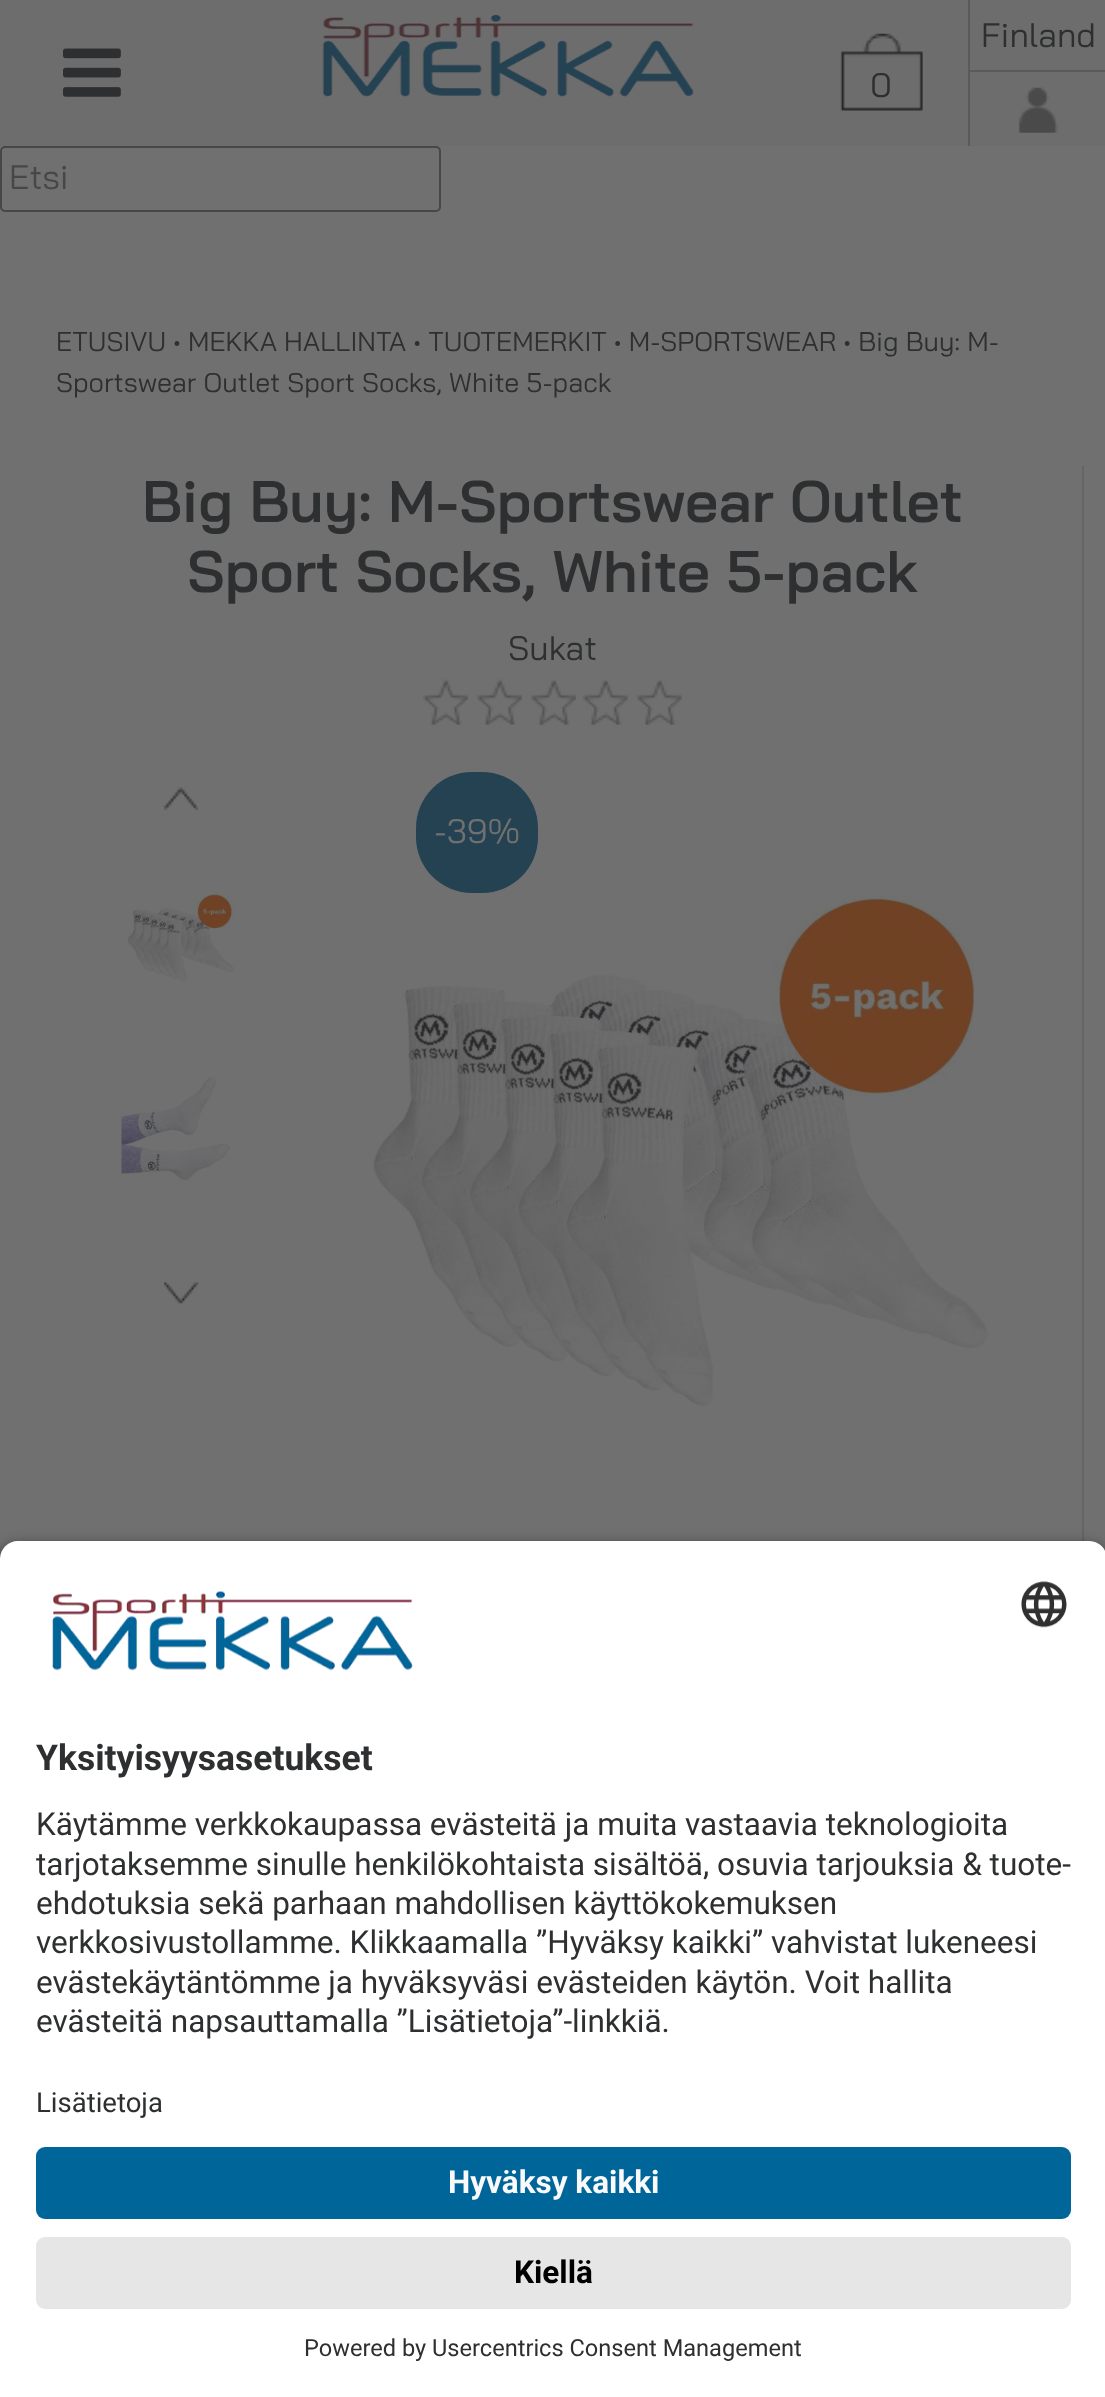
<!DOCTYPE html>
<meta charset="utf-8">
<style>body { margin: 0 } canvas { display: block }</style>
<canvas id="canvas" width="1105" height="2397"></canvas>
<img id="img1" src="images/1.png" hidden>
<img id="img2" src="images/2.png" hidden>
<img id="img3" src="images/3.png" hidden>
<img id="img4" src="images/4.png" hidden>
<img id="img5" src="images/5.png" hidden>
<img id="img6" src="images/6.png" hidden>
<img id="img7" src="images/7.png" hidden>
<img id="img8" src="images/8.png" hidden>
<img id="img9" src="images/9.png" hidden>
<img id="img10" src="images/10.png" hidden>
<img id="img11" src="images/11.png" hidden>
<img id="img12" src="images/12.png" hidden>
<img id="img13" src="images/13.png" hidden>
<img id="img14" src="images/14.png" hidden>
<img id="img15" src="images/15.png" hidden>
<img id="img16" src="images/16.png" hidden>
<img id="img17" src="images/17.png" hidden>
<script>
window.onload = function () {
    const canvas = document.getElementById('canvas');
    const context = canvas.getContext('2d');
    context.miterLimit = 4;
    context.fontKerning = 'normal';

    context.fillStyle = 'rgb(112, 112, 112)';
    context.fillRect(0, 0, 1105, 2397);
    context.fillStyle = 'rgb(109, 109, 109)';
    context.fillRect(0, 0, 1105, 146);
    context.drawImage(document.getElementById('img1'), 63, 48, 58, 49);
    context.drawImage(document.getElementById('img2'), 322, 15, 372, 82);
    context.fillStyle = 'rgb(90, 90, 90)';
    context.fillRect(970, 70, 135, 2);
    context.drawImage(document.getElementById('img3'), 1018, 87, 40, 46);
    context.fillRect(968, 0, 2, 146);
    context.drawImage(document.getElementById('img4'), 840, 33, 83, 78);
    context.beginPath();
    context.roundRect(1, 147, 439, 64, 4);
    context.strokeStyle = 'rgb(71, 71, 71)';
    context.lineWidth = 2;
    context.stroke();
    context.fillStyle = 'rgb(101, 101, 101)';
    context.fillRect(1082, 466, 2, 1075);
    context.drawImage(document.getElementById('img5'), 423, 679, 23, 47);
    context.drawImage(document.getElementById('img6'), 445, 679, 23, 46);
    context.drawImage(document.getElementById('img5'), 477, 679, 23, 47);
    context.drawImage(document.getElementById('img7'), 499, 679, 23, 46);
    context.drawImage(document.getElementById('img8'), 531, 679, 23, 47);
    context.drawImage(document.getElementById('img6'), 553, 679, 23, 46);
    context.drawImage(document.getElementById('img9'), 582, 679, 24, 47);
    context.drawImage(document.getElementById('img10'), 605, 679, 23, 46);
    context.drawImage(document.getElementById('img9'), 636, 679, 24, 47);
    context.drawImage(document.getElementById('img10'), 659, 679, 23, 46);
    context.drawImage(document.getElementById('img11'), 164, 787, 34, 23);
    context.drawImage(document.getElementById('img12'), 127, 891, 107, 91);
    context.drawImage(document.getElementById('img13'), 121, 1076, 110, 104);
    context.drawImage(document.getElementById('img14'), 164, 1282, 34, 22);
    context.fillStyle = 'rgb(36, 66, 82)';
    context.beginPath();
    context.roundRect(416, 772, 122, 121, 56);
    context.fill();
    context.drawImage(document.getElementById('img15'), 373, 893, 615, 513);
    context.fillStyle = 'rgba(0, 0, 0, 0.8)';
    context.filter = 'blur(8px)';
    context.beginPath();
    context.roundRect(0, 1548, 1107, 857, 18);
    context.fill();
    context.filter = 'none';
    context.fillStyle = 'rgb(255, 255, 255)';
    context.beginPath();
    context.moveTo(18, 1541);
    context.lineTo(1089, 1541);
    context.bezierCurveTo(1099, 1541, 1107, 1549, 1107, 1559);
    context.lineTo(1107, 2088);
    context.lineTo(0, 2088);
    context.lineTo(0, 1559);
    context.bezierCurveTo(0, 1549, 8, 1541, 18, 1541);
    context.closePath();
    context.fill();
    context.drawImage(document.getElementById('img16'), 52, 1591, 361, 80);
    context.drawImage(document.getElementById('img17'), 1021, 1581, 46, 47);
    context.fillRect(0, 2088, 1105, 309);
    context.fillStyle = 'rgb(0, 102, 153)';
    context.beginPath();
    context.roundRect(36, 2147, 1035, 72, 9);
    context.fill();
    context.fillStyle = 'rgb(230, 230, 230)';
    context.beginPath();
    context.roundRect(36, 2237, 1035, 72, 9);
    context.fill();
    context.font = '34px Bai Jamjuree';
    context.fillStyle = 'rgb(46, 47, 48)';
    context.fillText('Finland', 981, 47);
    context.fillText('0', 870, 97);
    context.fillStyle = 'rgb(71, 71, 71)';
    context.fillText('Etsi', 9, 189);
    context.font = '27px Bai Jamjuree';
    context.fillStyle = 'rgb(46, 47, 48)';
    context.fillText('ETUSIVU • MEKKA HALLINTA • TUOTEMERKIT • M-SPORTSWEAR • Big Buy: M-', 56, 351);
    context.fillText('Sportswear Outlet Sport Socks, White 5-pack', 56, 392);
    context.font = '600 58.5px Bai Jamjuree';
    context.fillText('Big Buy: M-Sportswear Outlet', 142, 522);
    context.fillText('Sport Socks, White 5-pack', 187, 592);
    context.font = '34px Bai Jamjuree';
    context.fillText('Sukat', 508, 660);
    context.fillStyle = 'rgb(112, 112, 112)';
    context.fillText('-39%', 434, 843);
    context.font = 'bold 35.5px Roboto';
    context.fillStyle = 'rgb(46, 47, 48)';
    context.fillText('Yksityisyysasetukset', 36, 1770);
    context.font = '31.5px Roboto';
    context.fillText('Käytämme verkkokaupassa evästeitä ja muita vastaavia teknologioita', 36, 1835);
    context.fillText('tarjotaksemme sinulle henkilökohtaista sisältöä, osuvia tarjouksia & tuote-', 36, 1875);
    context.fillText('ehdotuksia sekä parhaan mahdollisen käyttökokemuksen', 36, 1914);
    context.fillText('verkkosivustollamme. Klikkaamalla ”Hyväksy kaikki” vahvistat lukeneesi', 36, 1953);
    context.fillText('evästekäytäntömme ja hyväksyväsi evästeiden käytön. Voit hallita', 36, 1993);
    context.fillText('evästeitä napsauttamalla ”Lisätietoja”-linkkiä.', 36, 2032);
    context.font = '27.5px Roboto';
    context.fillText('Lisätietoja', 36, 2112);
    context.font = 'bold 31.5px Roboto';
    context.fillStyle = 'rgb(250, 250, 250)';
    context.fillText('Hyväksy kaikki', 448, 2193);
    context.fillStyle = 'rgb(0, 0, 0)';
    context.fillText('Kiellä', 514, 2283);
    context.font = '23.6px Roboto';
    context.fillStyle = 'rgb(46, 47, 48)';
    context.fillText('Powered by Usercentrics Consent Management', 304, 2356);
};
</script>
